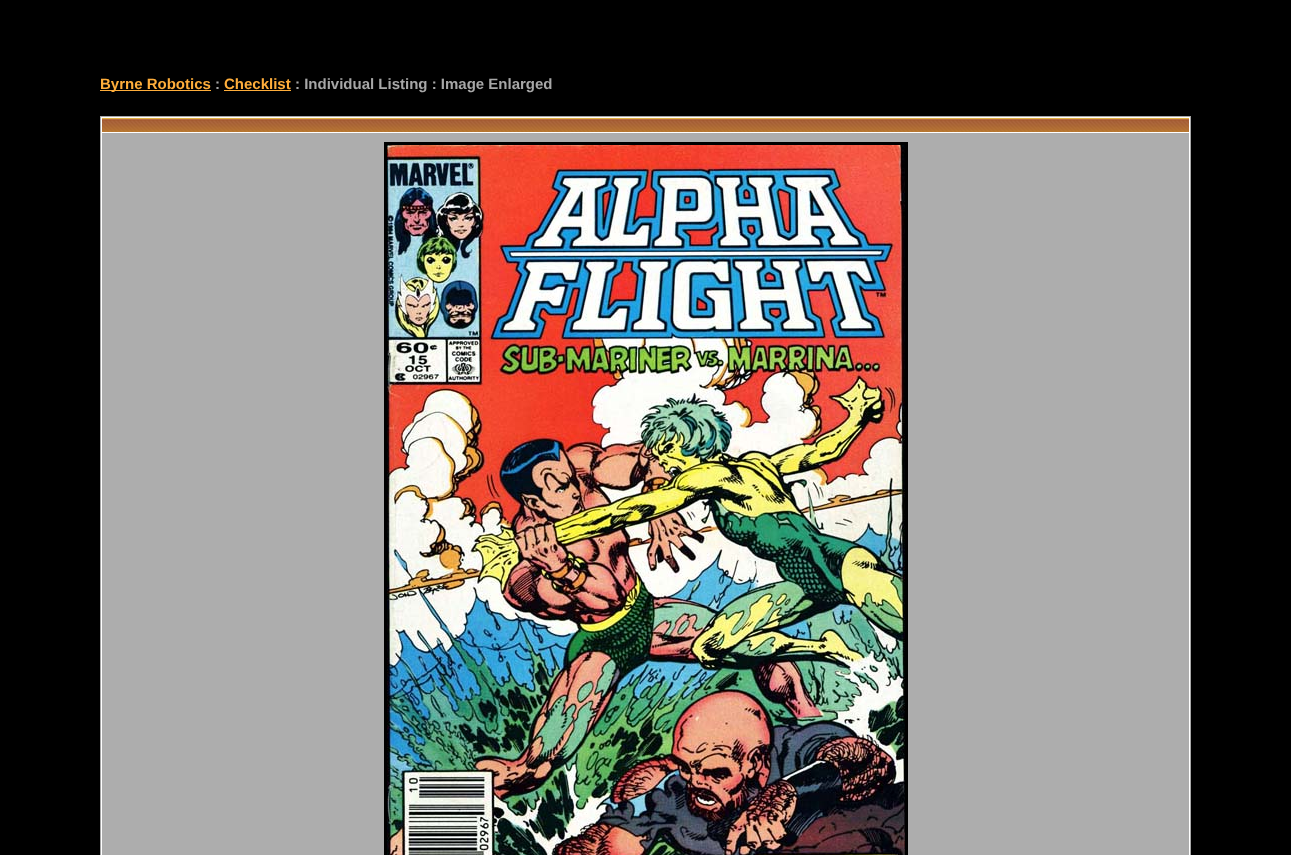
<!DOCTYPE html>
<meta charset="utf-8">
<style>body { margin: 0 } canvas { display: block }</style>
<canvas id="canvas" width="1291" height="855"></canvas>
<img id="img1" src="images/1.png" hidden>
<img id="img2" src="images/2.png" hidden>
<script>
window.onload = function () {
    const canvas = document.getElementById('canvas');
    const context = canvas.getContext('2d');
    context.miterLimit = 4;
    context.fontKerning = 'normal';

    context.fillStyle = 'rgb(0, 0, 0)';
    context.fillRect(0, 0, 1291, 855);
    context.fillStyle = 'rgb(255, 174, 59)';
    context.fillRect(100, 90, 111, 1);
    context.fillRect(224, 90, 67, 1);
    context.fillStyle = 'rgb(167, 167, 167)';
    context.fillRect(100, 116, 1091, 1);
    context.fillRect(1190, 116, 1, 739);
    context.fillRect(100, 116, 1, 739);
    context.fillStyle = 'rgb(173, 173, 173)';
    context.fillRect(102, 133, 1087, 722);
    context.fillStyle = 'rgb(255, 255, 255)';
    context.fillRect(101, 117, 1089, 1);
    context.fillRect(1189, 117, 1, 738);
    context.fillRect(101, 117, 1, 738);
    context.drawImage(document.getElementById('img1'), 102, 118, 1087, 14);
    context.fillRect(101, 132, 1089, 1);
    context.strokeStyle = 'rgb(0, 0, 0)';
    context.lineWidth = 3;
    context.strokeRect(385.5, 143.5, 521, 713);
    context.drawImage(document.getElementById('img2'), 387, 145, 518, 710);
    context.font = 'bold 15px Liberation Sans';
    context.fillStyle = 'rgb(255, 174, 59)';
    context.fillText('Byrne Robotics', 100, 89);
    context.fillStyle = 'rgb(167, 167, 167)';
    context.fillText(':', 215, 89);
    context.fillStyle = 'rgb(255, 174, 59)';
    context.fillText('Checklist', 224, 89);
    context.fillStyle = 'rgb(167, 167, 167)';
    context.fillText(': Individual Listing : Image Enlarged', 295, 89);
};
</script>
